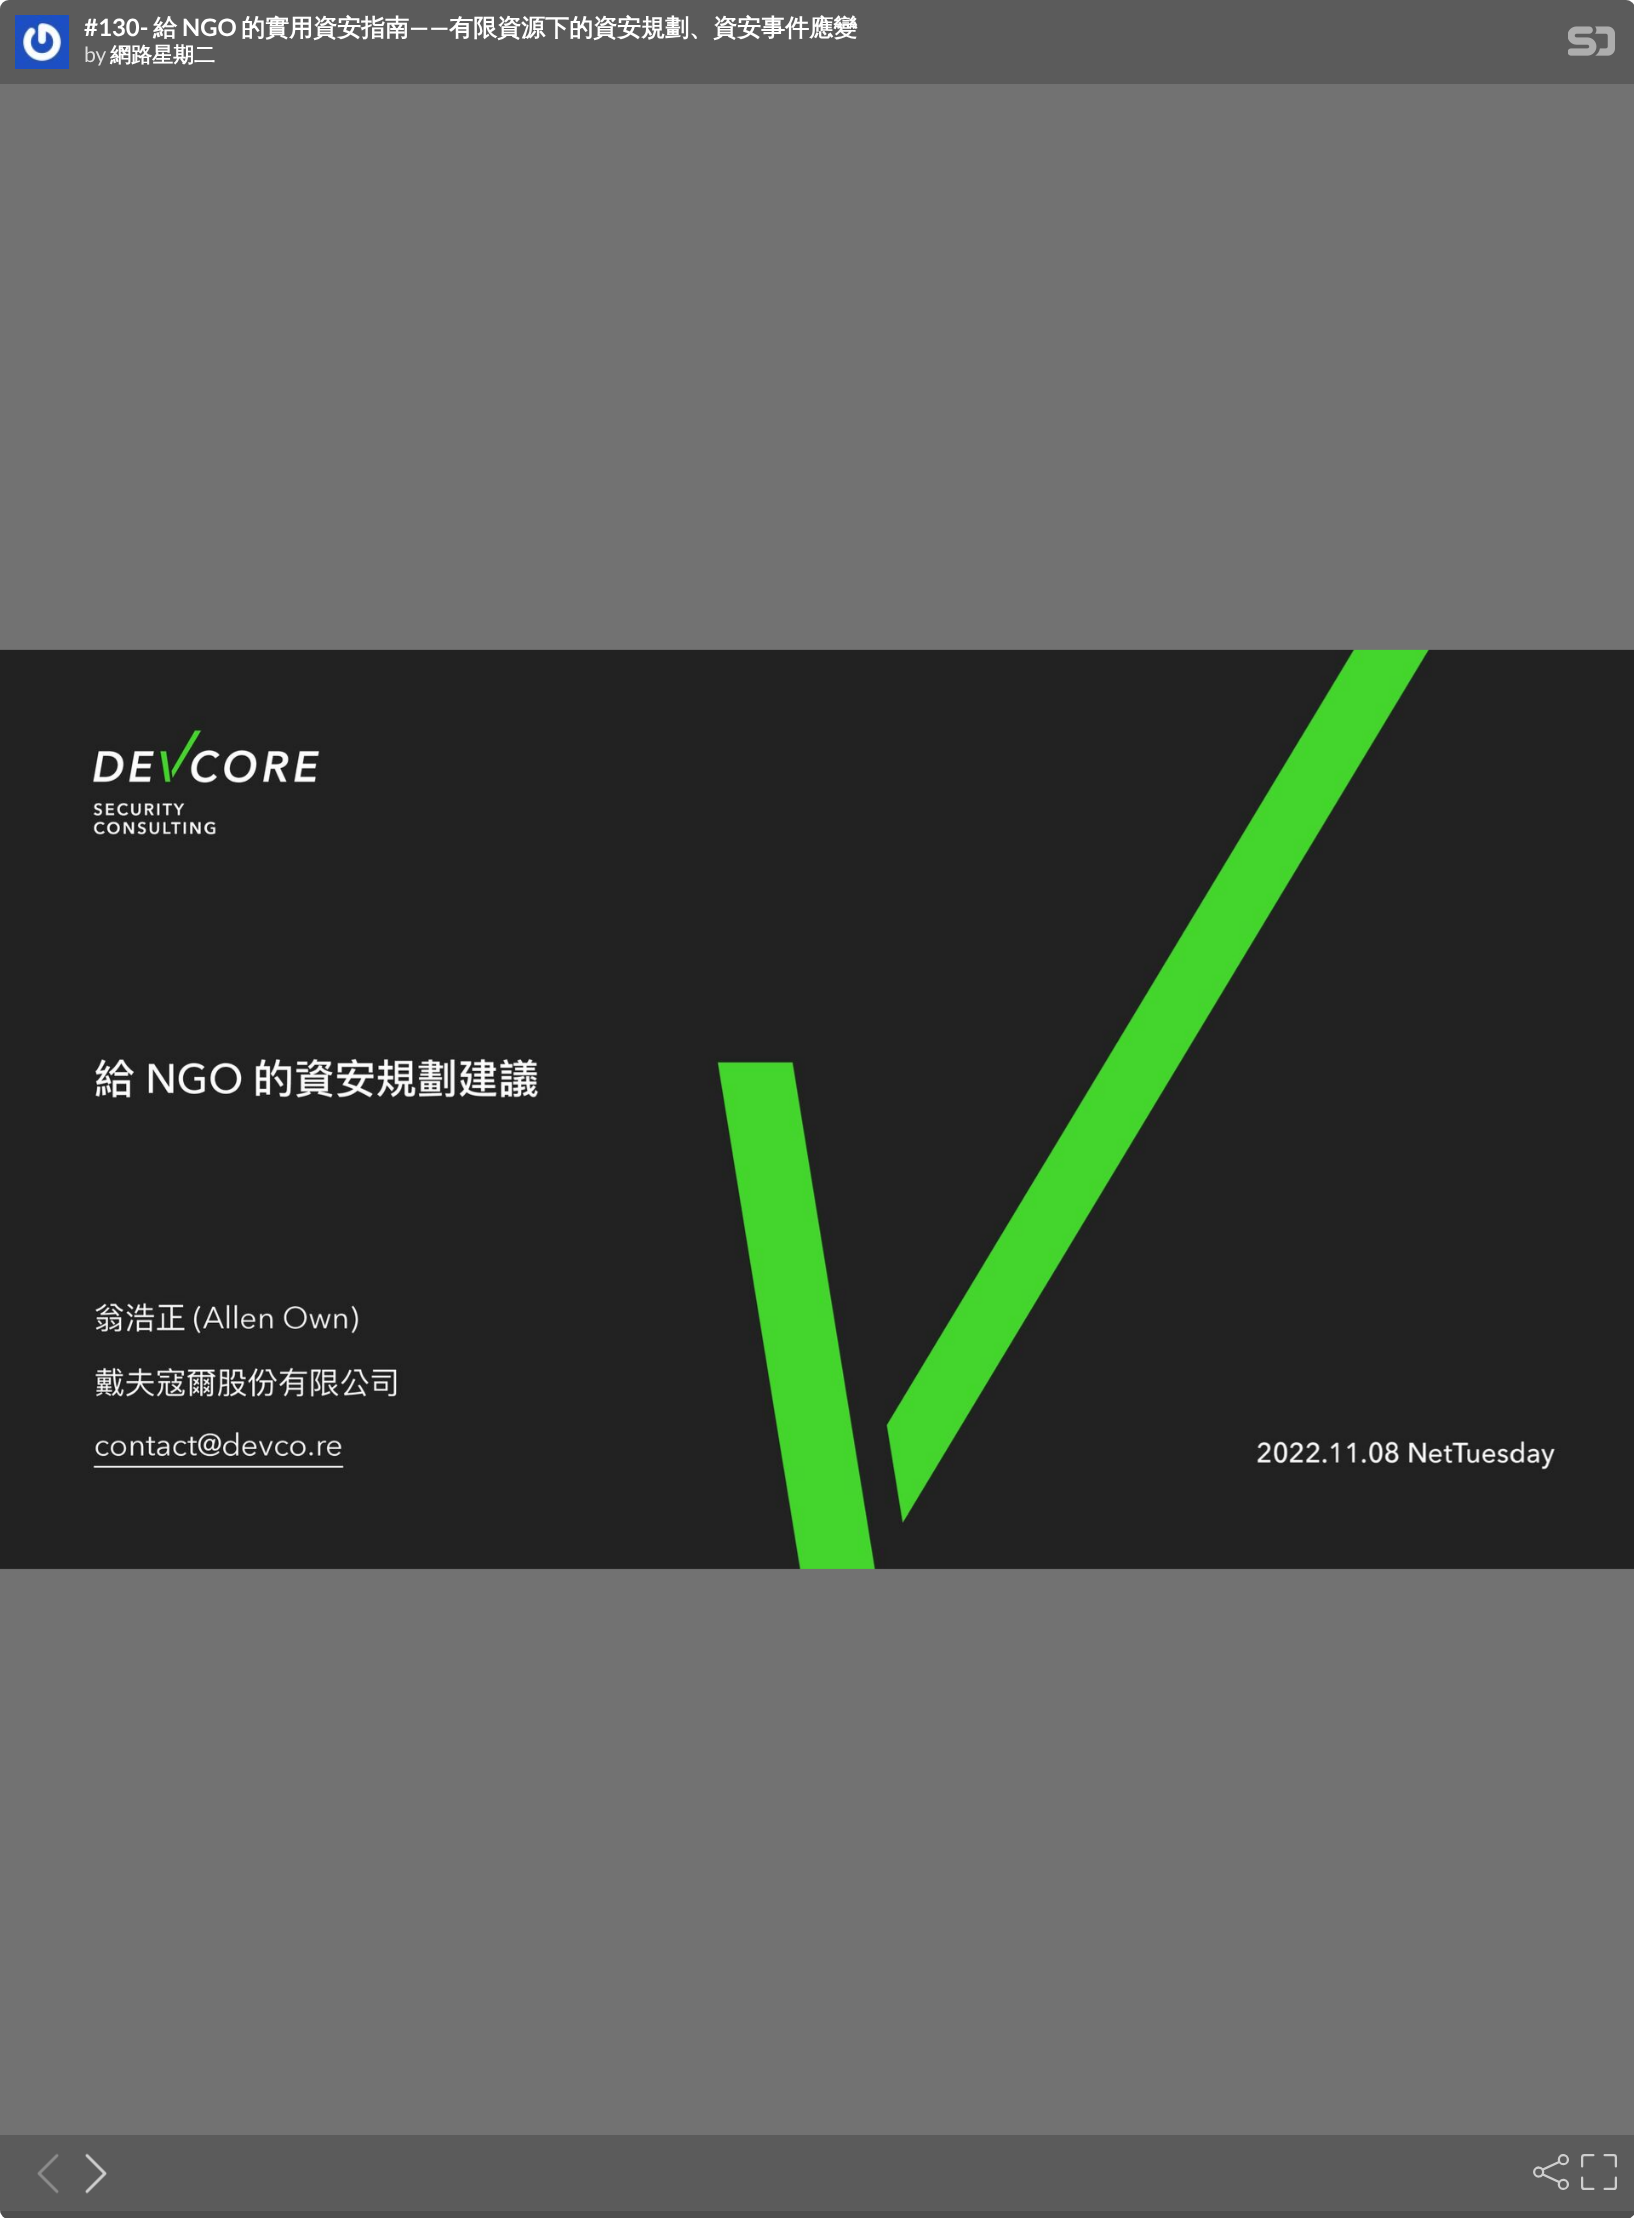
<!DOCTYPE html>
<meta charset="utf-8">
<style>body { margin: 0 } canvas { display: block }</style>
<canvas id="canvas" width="1634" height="2218"></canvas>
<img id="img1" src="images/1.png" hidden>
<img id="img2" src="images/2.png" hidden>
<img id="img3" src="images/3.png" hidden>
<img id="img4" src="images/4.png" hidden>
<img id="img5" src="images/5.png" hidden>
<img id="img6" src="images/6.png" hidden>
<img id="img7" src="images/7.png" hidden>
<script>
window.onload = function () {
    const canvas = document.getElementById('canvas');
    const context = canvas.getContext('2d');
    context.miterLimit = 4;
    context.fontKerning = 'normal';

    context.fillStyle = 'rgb(255, 255, 255)';
    context.fillRect(0, 0, 1634, 2218);
    context.fillStyle = 'rgb(114, 114, 114)';
    context.beginPath();
    context.roundRect(0, 0, 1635, 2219, 9);
    context.fill();
    context.drawImage(document.getElementById('img1'), 0, 649, 1634, 921);
    context.fillStyle = 'rgba(0, 0, 0, 0.2)';
    context.beginPath();
    context.moveTo(9, 0);
    context.lineTo(1626, 0);
    context.bezierCurveTo(1631, 0, 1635, 4, 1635, 9);
    context.lineTo(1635, 84);
    context.lineTo(0, 84);
    context.lineTo(0, 9);
    context.bezierCurveTo(0, 4, 4, 0, 9, 0);
    context.closePath();
    context.fill();
    context.drawImage(document.getElementById('img2'), 15, 15, 54, 54);
    context.drawImage(document.getElementById('img3'), 1568, 26, 47, 30);
    context.beginPath();
    context.moveTo(0, 2135);
    context.lineTo(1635, 2135);
    context.lineTo(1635, 2210);
    context.bezierCurveTo(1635, 2215, 1631, 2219, 1626, 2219);
    context.lineTo(9, 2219);
    context.bezierCurveTo(4, 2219, 0, 2215, 0, 2210);
    context.closePath();
    context.fill();
    context.drawImage(document.getElementById('img4'), 37, 2153, 22, 41);
    context.drawImage(document.getElementById('img5'), 85, 2153, 22, 41);
    context.drawImage(document.getElementById('img6'), 1533, 2154, 36, 36);
    context.drawImage(document.getElementById('img7'), 1581, 2154, 36, 36);
    context.save();
    context.beginPath();
    context.roundRect(0, 0, 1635, 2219, 9);
    context.clip();
    context.fillStyle = 'rgba(0, 0, 0, 0.15)';
    context.fillRect(0, 2211, 1634, 7);
    context.restore();
    context.font = 'bold 24px Lato';
    context.fillStyle = 'rgb(255, 255, 255)';
    context.fillText('#130-', 84, 36);
    context.font = 'bold 24px WenQuanYi Zen Hei';
    context.fillText('給', 153, 36);
    context.font = 'bold 24px Lato';
    context.fillText('NGO', 182, 36);
    context.font = 'bold 24px WenQuanYi Zen Hei';
    context.fillText('的實用資安指南', 241, 36);
    context.font = 'bold 24px Lato';
    context.fillText('——', 409, 36);
    context.font = 'bold 24px WenQuanYi Zen Hei';
    context.fillText('有限資源下的資安規劃、資安事件應變', 449, 36);
    context.font = '21px Lato';
    context.fillStyle = 'rgb(222, 222, 222)';
    context.fillText('by', 84, 62);
    context.font = 'bold 21px WenQuanYi Zen Hei';
    context.fillStyle = 'rgb(255, 255, 255)';
    context.fillText('網路星期二', 110, 62);
};
</script>
